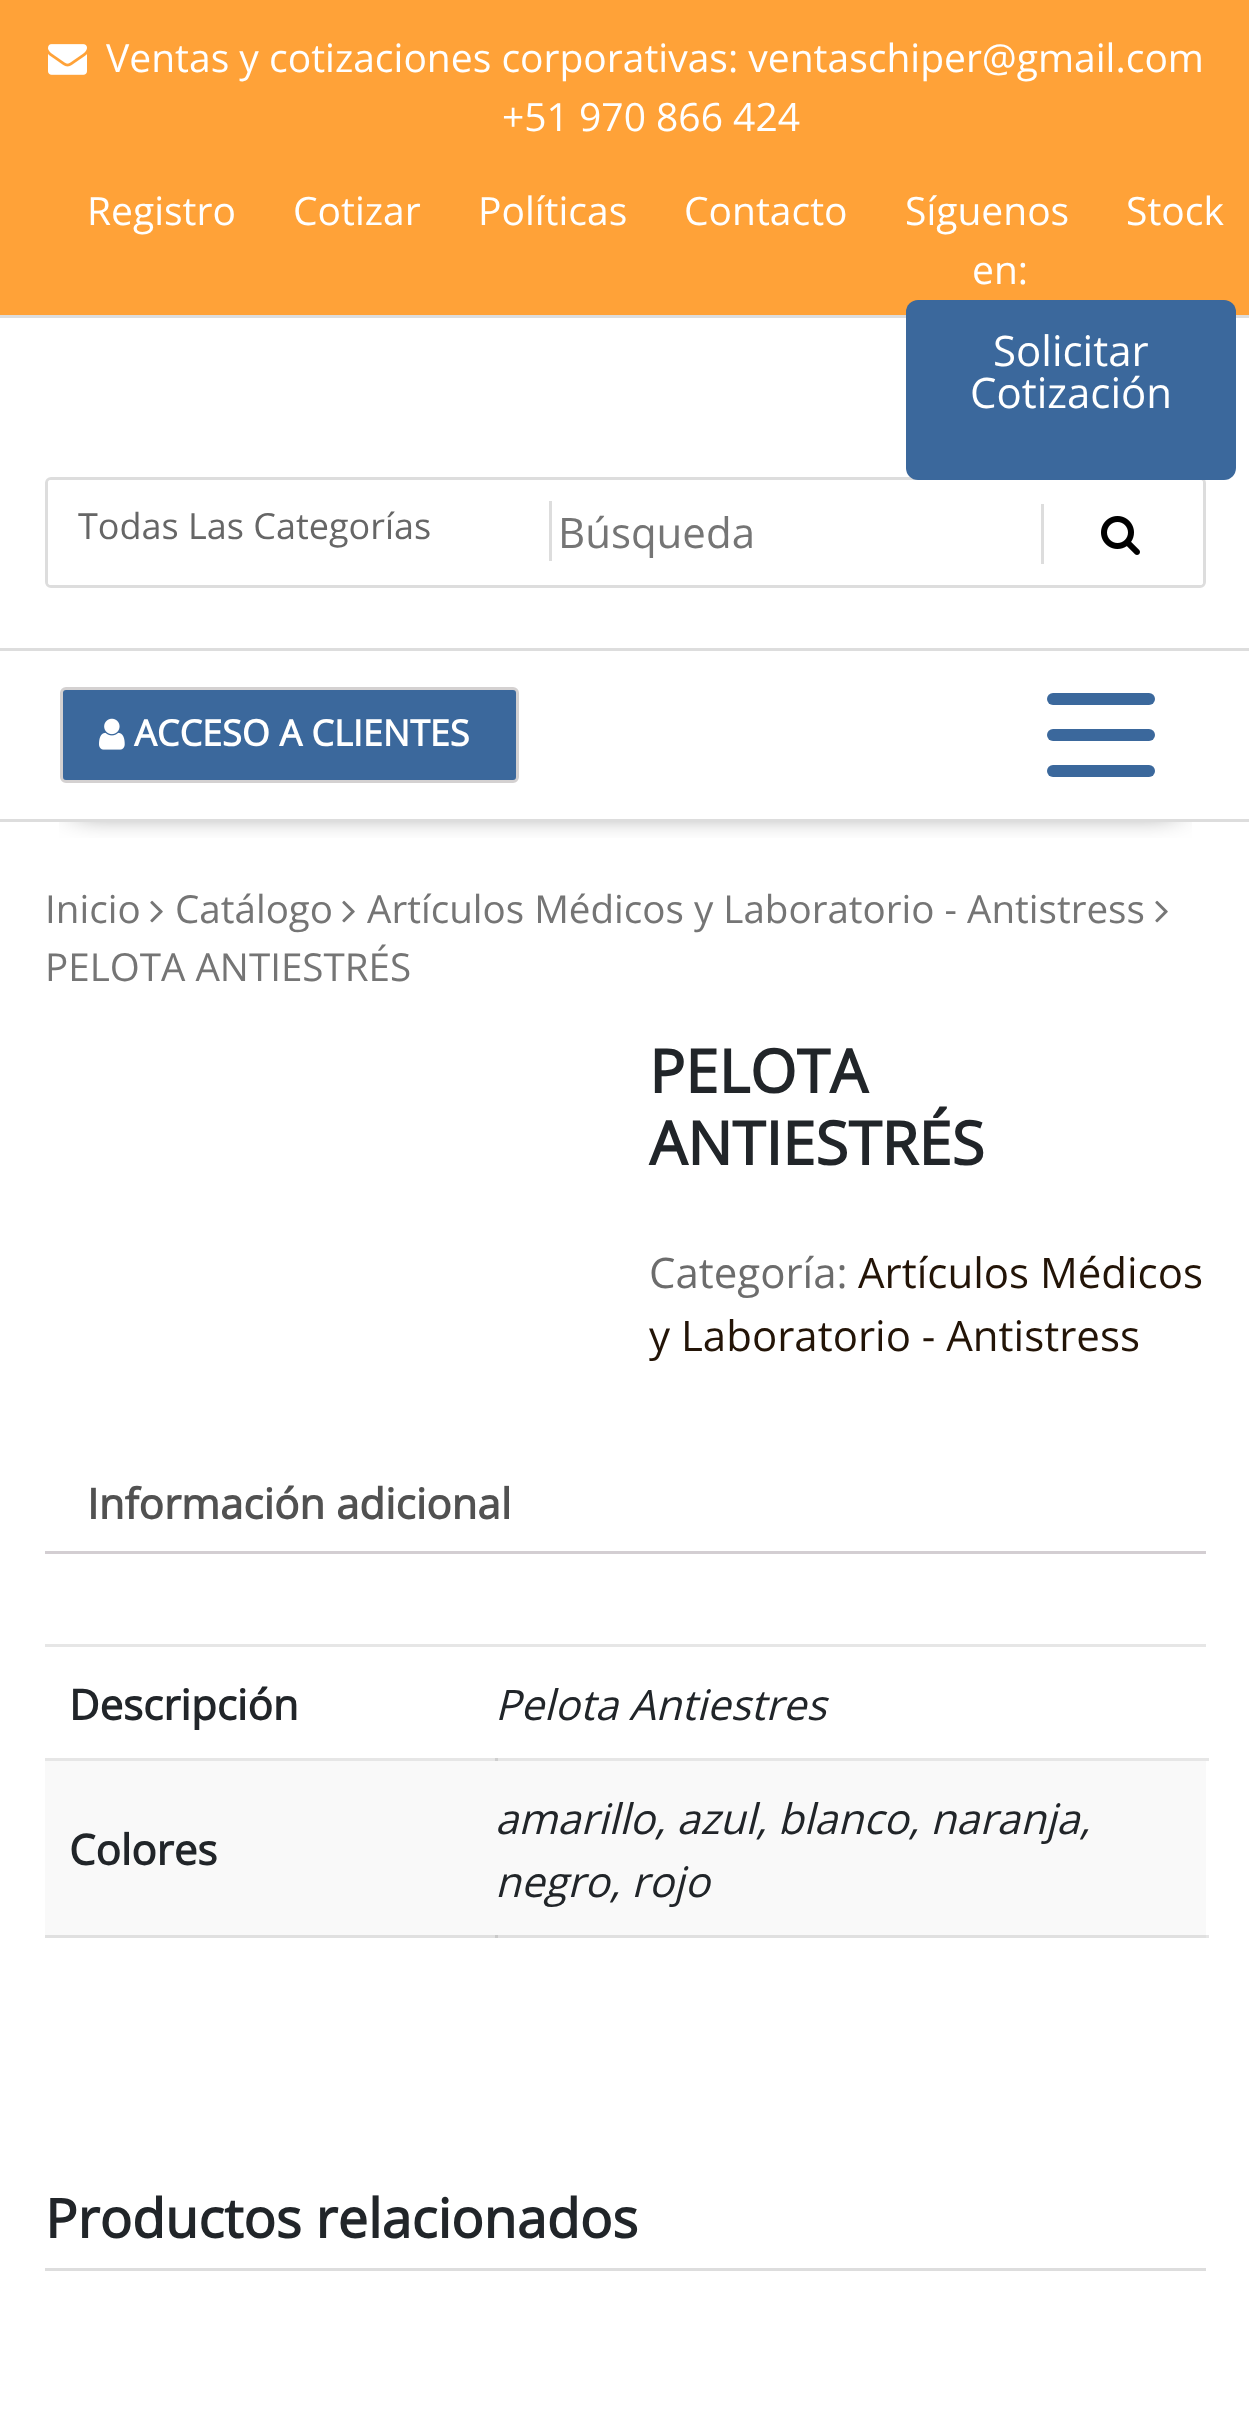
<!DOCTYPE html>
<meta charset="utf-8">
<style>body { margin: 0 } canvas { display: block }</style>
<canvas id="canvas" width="1249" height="2435"></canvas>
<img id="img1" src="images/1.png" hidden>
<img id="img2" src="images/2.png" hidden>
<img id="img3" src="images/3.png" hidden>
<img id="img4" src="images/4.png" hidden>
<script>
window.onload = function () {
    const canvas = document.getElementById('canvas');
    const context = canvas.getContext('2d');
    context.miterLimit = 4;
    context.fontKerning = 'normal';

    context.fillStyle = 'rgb(255, 255, 255)';
    context.fillRect(0, 0, 1249, 2435);
    context.fillStyle = 'rgb(230, 230, 230)';
    context.fillRect(45, 1758, 1164, 3);
    context.fillRect(1206, 1935, 3, 3);
    context.fillStyle = 'rgb(255, 162, 56)';
    context.fillRect(0, 0, 1249, 315);
    context.fillStyle = 'rgb(221, 221, 221)';
    context.fillRect(0, 315, 1249, 3);
    context.drawImage(document.getElementById('img1'), 48, 44, 39, 31);
    context.beginPath();
    context.roundRect(46.5, 478.5, 1158, 108, 4.5);
    context.strokeStyle = 'rgb(221, 221, 221)';
    context.lineWidth = 3;
    context.stroke();
    context.fillStyle = 'rgb(255, 255, 255)';
    context.beginPath();
    context.roundRect(48, 480, 1155, 105, 3);
    context.fill();
    context.fillStyle = 'rgb(221, 221, 221)';
    context.fillRect(549, 501, 3, 60);
    context.fillRect(1041, 504, 3, 60);
    context.drawImage(document.getElementById('img2'), 1101, 516, 39, 39);
    context.save();
    context.beginPath();
    context.rect(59, 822, 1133, 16);
    context.clip();
    context.fillStyle = 'rgb(0, 0, 0)';
    context.filter = 'blur(16.5px)';
    context.beginPath();
    context.rect(75, 780, 1101, 24);
    context.fill();
    context.filter = 'none';
    context.restore();
    context.fillRect(0, 648, 1249, 3);
    context.fillRect(0, 819, 1249, 3);
    context.fillStyle = 'rgb(59, 104, 156)';
    context.beginPath();
    context.roundRect(61.5, 688.5, 456, 93, 4.5);
    context.fill();
    context.strokeStyle = 'rgb(212, 209, 209)';
    context.stroke();
    context.drawImage(document.getElementById('img3'), 99, 718, 26, 32);
    context.beginPath();
    context.roundRect(1047, 693, 108, 12, 6);
    context.fill();
    context.beginPath();
    context.roundRect(1047, 729, 108, 12, 6);
    context.fill();
    context.beginPath();
    context.roundRect(1047, 765, 108, 12, 6);
    context.fill();
    context.drawImage(document.getElementById('img4'), 150, 900, 13, 23);
    context.drawImage(document.getElementById('img4'), 342, 900, 13, 23);
    context.drawImage(document.getElementById('img4'), 1155, 900, 13, 23);
    context.fillStyle = 'rgb(211, 206, 210)';
    context.fillRect(45, 1551, 1161, 3);
    context.fillStyle = 'rgb(230, 230, 230)';
    context.fillRect(45, 1644, 1161, 3);
    context.fillStyle = 'rgb(207, 207, 207)';
    context.fillRect(495, 1758, 3, 3);
    context.fillStyle = 'rgb(249, 249, 249)';
    context.fillRect(45, 1761, 1161, 174);
    context.fillStyle = 'rgb(224, 224, 224)';
    context.fillRect(45, 1935, 1161, 3);
    context.fillStyle = 'rgb(202, 202, 202)';
    context.fillRect(495, 1935, 3, 3);
    context.fillStyle = 'rgb(221, 221, 221)';
    context.fillRect(45, 2268, 1161, 3);
    context.fillStyle = 'rgb(59, 104, 156)';
    context.beginPath();
    context.roundRect(906, 300, 330, 180, 12);
    context.fill();
    context.font = '39px Open Sans';
    context.fillStyle = 'rgb(255, 255, 255)';
    context.fillText('Ventas y cotizaciones corporativas: ventaschiper@gmail.com', 106, 72);
    context.fillText('+51 970 866 424', 502, 131);
    context.fillText('Registro', 87, 225);
    context.fillText('Cotizar', 293, 225);
    context.fillText('Políticas', 478, 225);
    context.fillText('Contacto', 684, 225);
    context.fillText('Síguenos', 905, 225);
    context.fillText('en:', 972, 284);
    context.fillText('Stock', 1126, 225);
    context.font = '36px Open Sans';
    context.fillStyle = 'rgb(102, 102, 102)';
    context.fillText('Todas Las Categorías', 78, 539);
    context.font = '42px Open Sans';
    context.fillStyle = 'rgb(117, 117, 117)';
    context.fillText('Búsqueda', 558, 548);
    context.font = 'bold 36px Open Sans';
    context.fillStyle = 'rgb(255, 255, 255)';
    context.fillText('ACCESO A CLIENTES', 134, 746);
    context.font = '38.6px Open Sans';
    context.fillStyle = 'rgb(117, 117, 117)';
    context.fillText('Inicio', 45, 923);
    context.fillText('Catálogo', 175, 923);
    context.fillText('Artículos Médicos y Laboratorio - Antistress', 367, 923);
    context.fillText('PELOTA ANTIESTRÉS', 45, 981);
    context.font = 'bold 60px Open Sans';
    context.fillStyle = 'rgb(33, 37, 41)';
    context.fillText('PELOTA', 649, 1093);
    context.fillText('ANTIESTRÉS', 649, 1165);
    context.font = '42px Open Sans';
    context.fillStyle = 'rgb(108, 108, 108)';
    context.fillText('Categoría:', 649, 1288);
    context.fillStyle = 'rgb(35, 20, 7)';
    context.fillText('Artículos Médicos', 858, 1288);
    context.fillText('y Laboratorio - Antistress', 649, 1351);
    context.font = 'bold 42px Open Sans';
    context.fillStyle = 'rgb(81, 81, 81)';
    context.fillText('Información adicional', 87, 1519);
    context.fillStyle = 'rgb(33, 37, 41)';
    context.fillText('Descripción', 69, 1720);
    context.font = 'italic 42px Open Sans';
    context.fillText('Pelota Antiestres', 495, 1720);
    context.font = 'bold 42px Open Sans';
    context.fillText('Colores', 69, 1865);
    context.font = 'italic 42px Open Sans';
    context.fillText('amarillo, azul, blanco, naranja,', 495, 1834);
    context.fillText('negro, rojo', 495, 1897);
    context.font = 'bold 54px Open Sans';
    context.fillText('Productos relacionados', 45, 2238);
    context.font = '42px Open Sans';
    context.fillStyle = 'rgb(255, 255, 255)';
    context.fillText('Solicitar', 993, 366);
    context.fillText('Cotización', 970, 408);
};
</script>
